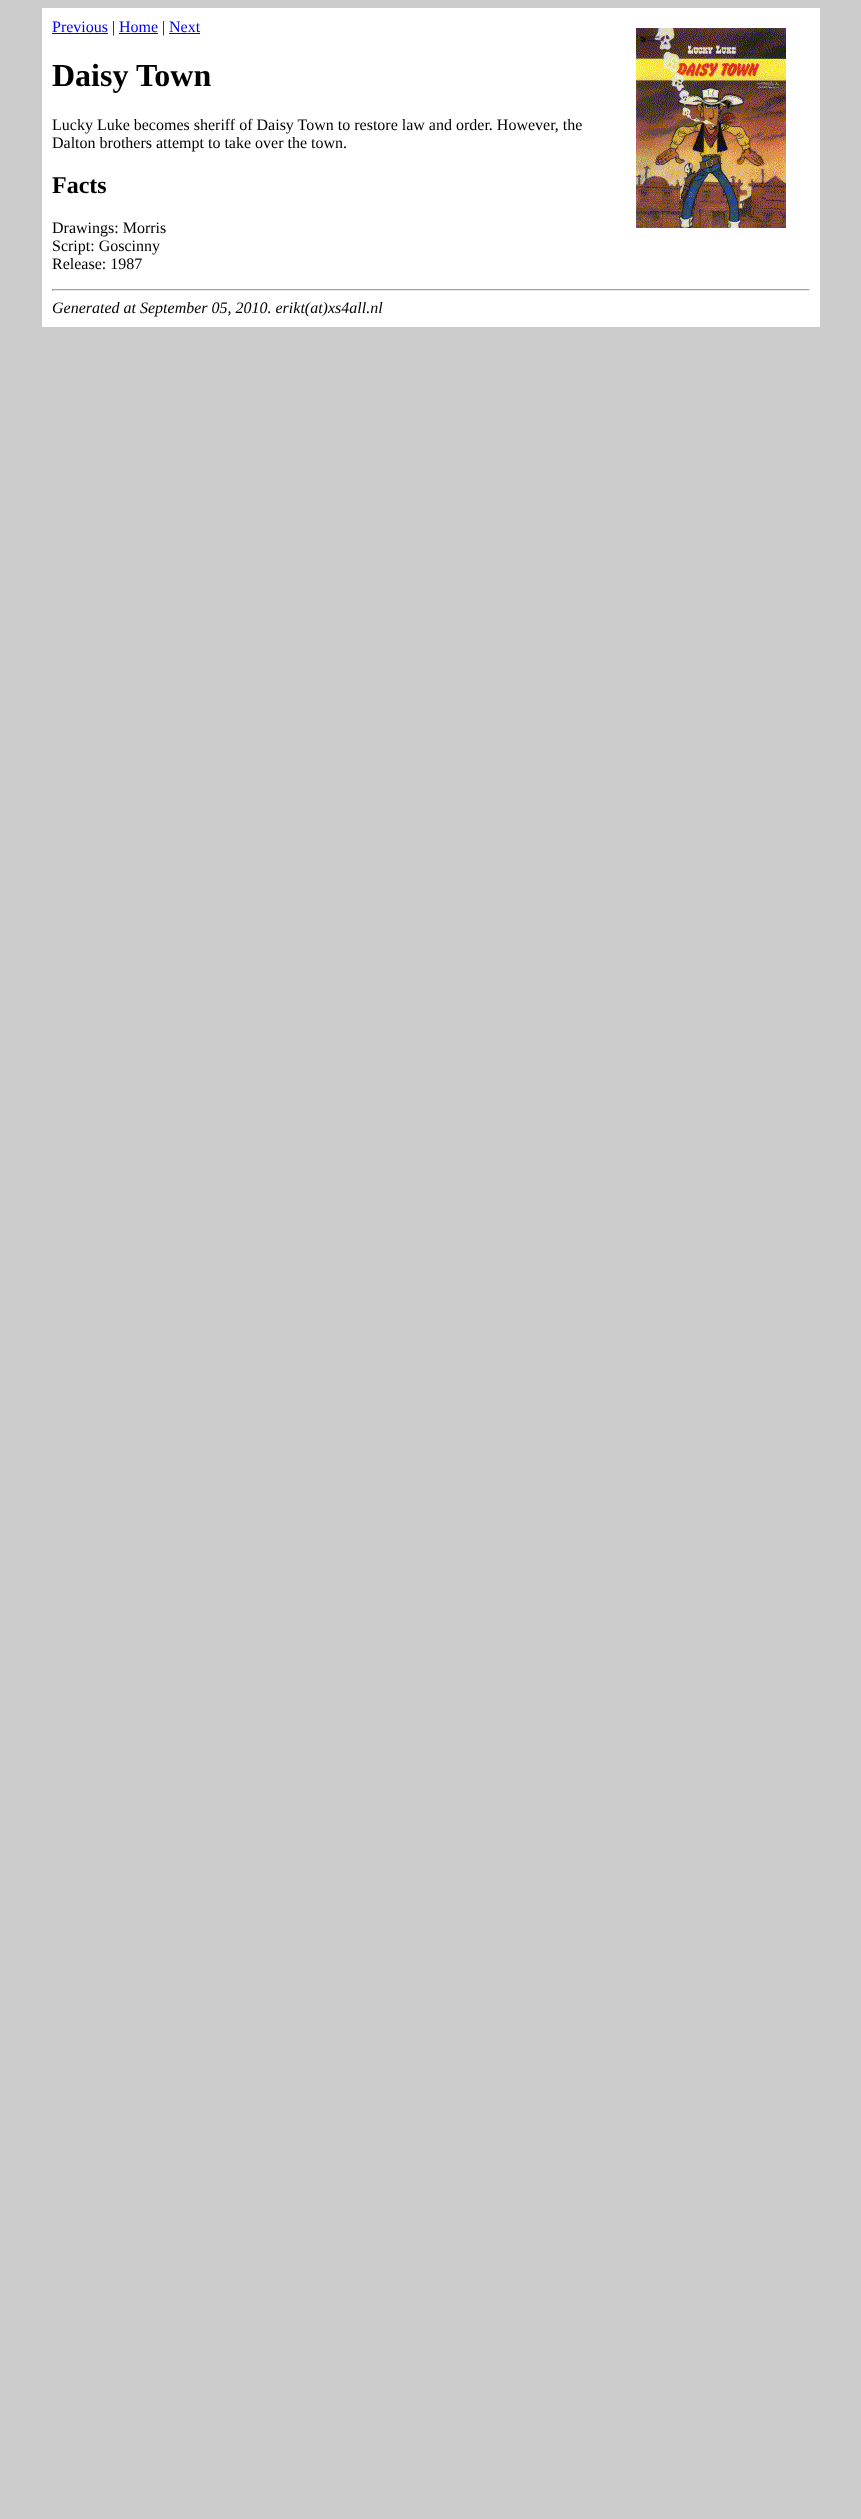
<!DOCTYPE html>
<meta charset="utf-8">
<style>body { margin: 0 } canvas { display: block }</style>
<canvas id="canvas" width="861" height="2519"></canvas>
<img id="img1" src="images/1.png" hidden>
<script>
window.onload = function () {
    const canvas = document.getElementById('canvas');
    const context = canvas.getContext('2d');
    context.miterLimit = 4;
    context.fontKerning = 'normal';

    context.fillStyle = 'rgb(204, 204, 204)';
    context.fillRect(0, 0, 861, 2519);
    context.fillStyle = 'rgb(255, 255, 255)';
    context.fillRect(42, 8, 778, 319);
    context.fillStyle = 'rgb(0, 0, 238)';
    context.fillRect(52, 33, 56, 1);
    context.fillRect(119, 33, 39, 1);
    context.fillRect(169, 33, 31, 1);
    context.drawImage(document.getElementById('img1'), 636, 28, 150, 200);
    context.fillStyle = 'rgb(159, 159, 159)';
    context.fillRect(52, 289, 758, 1);
    context.fillStyle = 'rgb(238, 238, 238)';
    context.fillRect(809, 289, 1, 2);
    context.fillRect(52, 290, 758, 1);
    context.fillStyle = 'rgb(159, 159, 159)';
    context.fillRect(52, 289, 1, 2);
    context.font = '16px Liberation Serif';
    context.fillStyle = 'rgb(0, 0, 238)';
    context.fillText('Previous', 52, 32);
    context.fillStyle = 'rgb(0, 0, 0)';
    context.fillText('|', 112, 32);
    context.fillStyle = 'rgb(0, 0, 238)';
    context.fillText('Home', 119, 32);
    context.fillStyle = 'rgb(0, 0, 0)';
    context.fillText('|', 162, 32);
    context.fillStyle = 'rgb(0, 0, 238)';
    context.fillText('Next', 169, 32);
    context.font = 'bold 32px Liberation Serif';
    context.fillStyle = 'rgb(0, 0, 0)';
    context.fillText('Daisy Town', 52, 86);
    context.font = '16px Liberation Serif';
    context.fillText('Lucky Luke becomes sheriff of Daisy Town to restore law and order. However, the', 52, 130);
    context.fillText('Dalton brothers attempt to take over the town.', 52, 148);
    context.font = 'bold 24px Liberation Serif';
    context.fillText('Facts', 52, 193);
    context.font = '16px Liberation Serif';
    context.fillText('Drawings: Morris', 52, 233);
    context.fillText('Script: Goscinny', 52, 251);
    context.fillText('Release: 1987', 52, 269);
    context.font = 'italic 16px Liberation Serif';
    context.fillText('Generated at September 05, 2010. erikt(at)xs4all.nl', 52, 313);
};
</script>
